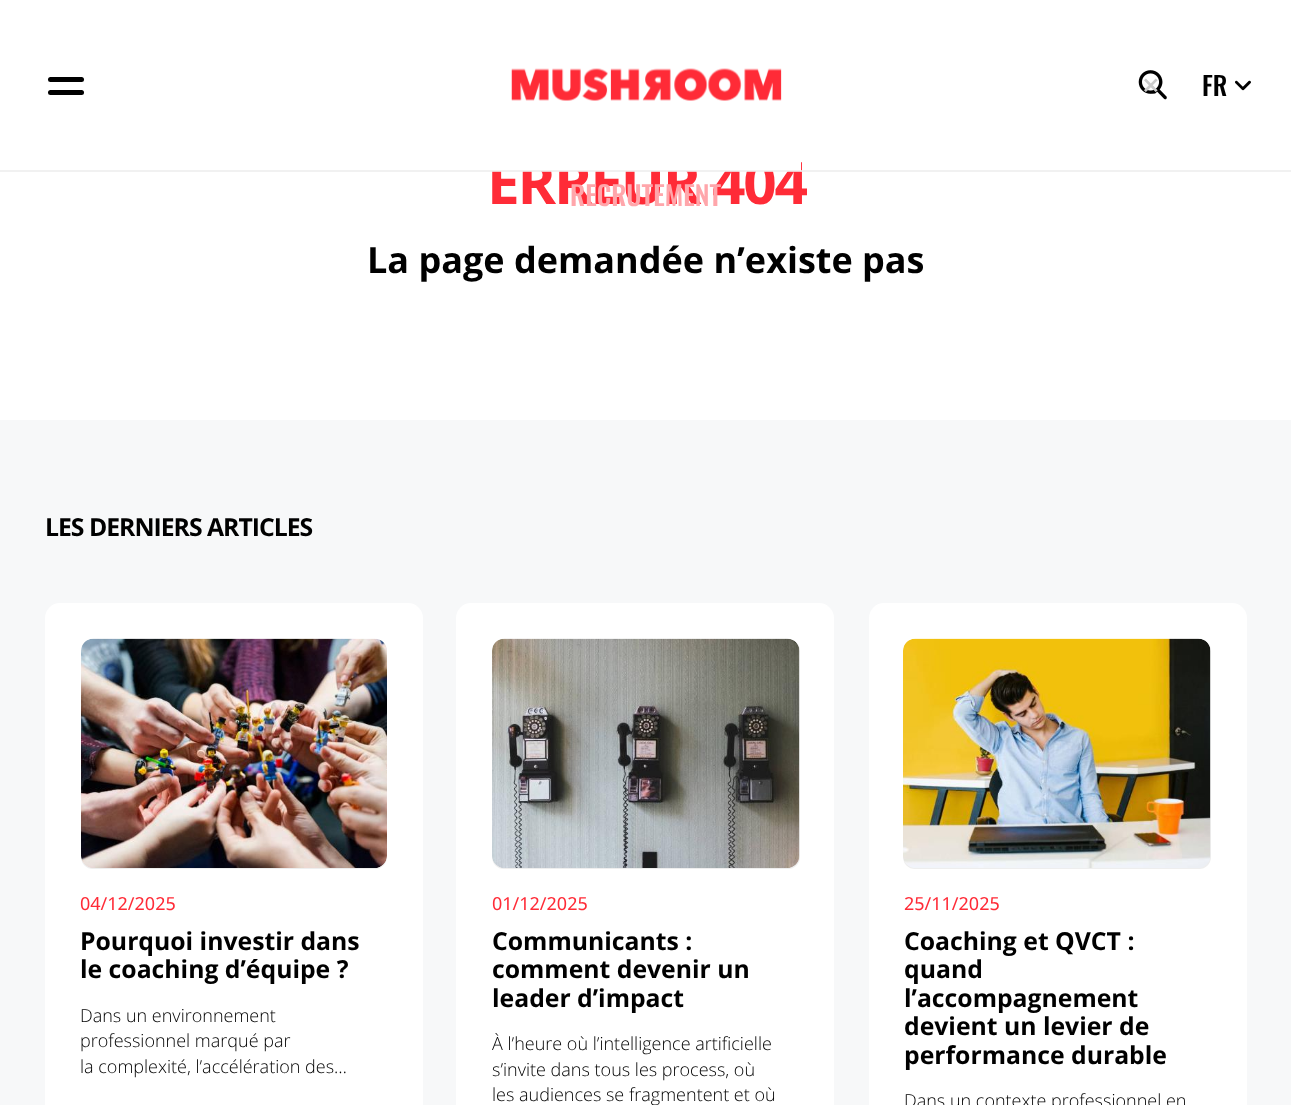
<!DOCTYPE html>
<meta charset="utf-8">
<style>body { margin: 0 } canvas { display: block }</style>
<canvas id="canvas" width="1291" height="1105"></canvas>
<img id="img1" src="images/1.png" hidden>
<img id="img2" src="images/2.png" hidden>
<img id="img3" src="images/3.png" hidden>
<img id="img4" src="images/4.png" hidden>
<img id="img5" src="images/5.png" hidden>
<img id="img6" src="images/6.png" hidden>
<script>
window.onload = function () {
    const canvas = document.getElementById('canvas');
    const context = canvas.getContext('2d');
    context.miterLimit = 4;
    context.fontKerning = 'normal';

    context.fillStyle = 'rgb(255, 255, 255)';
    context.fillRect(0, 0, 1291, 1105);
    context.fillStyle = 'rgb(0, 0, 0)';
    context.beginPath();
    context.roundRect(48, 77, 36, 5, 2.5);
    context.fill();
    context.beginPath();
    context.roundRect(48, 90, 36, 5, 2.5);
    context.fill();
    context.drawImage(document.getElementById('img1'), 511, 68, 271, 33);
    context.drawImage(document.getElementById('img2'), 1138, 70, 29, 30);
    context.drawImage(document.getElementById('img3'), 1235, 80, 16, 11);
    context.fillStyle = 'rgb(247, 248, 249)';
    context.fillRect(0, 420, 1291, 685);
    context.fillStyle = 'rgb(255, 255, 255)';
    context.beginPath();
    context.roundRect(45, 603, 378, 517, 15);
    context.fill();
    context.fillStyle = 'rgb(238, 238, 238)';
    context.beginPath();
    context.roundRect(81, 639, 306, 230, 12);
    context.fill();
    context.drawImage(document.getElementById('img4'), 81, 638, 306, 230);
    context.fillStyle = 'rgb(255, 255, 255)';
    context.beginPath();
    context.roundRect(456, 603, 378, 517, 15);
    context.fill();
    context.fillStyle = 'rgb(238, 238, 238)';
    context.beginPath();
    context.roundRect(492, 639, 308, 230, 12);
    context.fill();
    context.drawImage(document.getElementById('img5'), 492, 638, 308, 230);
    context.fillStyle = 'rgb(255, 255, 255)';
    context.beginPath();
    context.roundRect(869, 603, 378, 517, 15);
    context.fill();
    context.fillStyle = 'rgb(238, 238, 238)';
    context.beginPath();
    context.roundRect(903, 639, 308, 230, 12);
    context.fill();
    context.drawImage(document.getElementById('img6'), 903, 638, 308, 230);
    context.font = '300 50px Oswald';
    context.fillStyle = 'rgb(203, 203, 203)';
    context.fillText('×', 1142, 106);
    context.font = '500 26px Oswald';
    context.fillStyle = 'rgb(0, 0, 0)';
    context.fillText('FR', 1202, 96);
    context.letterSpacing = '-2.25px';
    context.font = 'bold 58.5px Open Sans';
    context.fillStyle = 'rgb(255, 43, 55)';
    context.fillText('ERREUR 404', 487, 204);
    context.letterSpacing = '0px';
    context.font = '500 27px Oswald';
    context.fillStyle = 'rgb(255, 166, 171)';
    context.fillText('RECRUTEMENT', 570, 206);
    context.fillStyle = 'rgb(255, 255, 255)';
    context.fillRect(492, 161, 309, 10);
    context.fillStyle = 'rgba(238, 238, 238, 0.8)';
    context.fillRect(0, 170, 1291, 2);
    context.font = 'bold 36px Open Sans';
    context.fillStyle = 'rgb(0, 0, 0)';
    context.fillText('La page demandée n’existe pas', 367, 273);
    context.letterSpacing = '-1px';
    context.font = 'bold 24.75px Open Sans';
    context.fillText('LES DERNIERS ARTICLES', 45, 536);
    context.letterSpacing = '0px';
    context.font = '18px Open Sans';
    context.fillStyle = 'rgb(255, 43, 55)';
    context.fillText('04/12/2025', 80, 910);
    context.font = 'bold 24.75px Open Sans';
    context.fillStyle = 'rgb(0, 0, 0)';
    context.fillText('Pourquoi investir dans', 80, 950);
    context.fillText('le coaching d’équipe ?', 80, 978);
    context.font = '300 18px Open Sans';
    context.fillText('Dans un environnement', 80, 1022);
    context.fillText('professionnel marqué par', 80, 1047);
    context.fillText('la complexité, l’accélération des…', 80, 1073);
    context.font = '18px Open Sans';
    context.fillStyle = 'rgb(255, 43, 55)';
    context.fillText('01/12/2025', 492, 910);
    context.font = 'bold 24.75px Open Sans';
    context.fillStyle = 'rgb(0, 0, 0)';
    context.fillText('Communicants :', 492, 950);
    context.fillText('comment devenir un', 492, 978);
    context.fillText('leader d’impact', 492, 1007);
    context.font = '300 18px Open Sans';
    context.fillText('À l’heure où l’intelligence artificielle', 492, 1050);
    context.fillText('s’invite dans tous les process, où', 492, 1076);
    context.fillText('les audiences se fragmentent et où', 492, 1101);
    context.font = '18px Open Sans';
    context.fillStyle = 'rgb(255, 43, 55)';
    context.fillText('25/11/2025', 904, 910);
    context.font = 'bold 24.75px Open Sans';
    context.fillStyle = 'rgb(0, 0, 0)';
    context.fillText('Coaching et QVCT :', 904, 950);
    context.fillText('quand', 904, 978);
    context.fillText('l’accompagnement', 904, 1007);
    context.fillText('devient un levier de', 904, 1035);
    context.fillText('performance durable', 904, 1064);
    context.font = '300 18px Open Sans';
    context.fillText('Dans un contexte professionnel en', 904, 1107);
};
</script>
